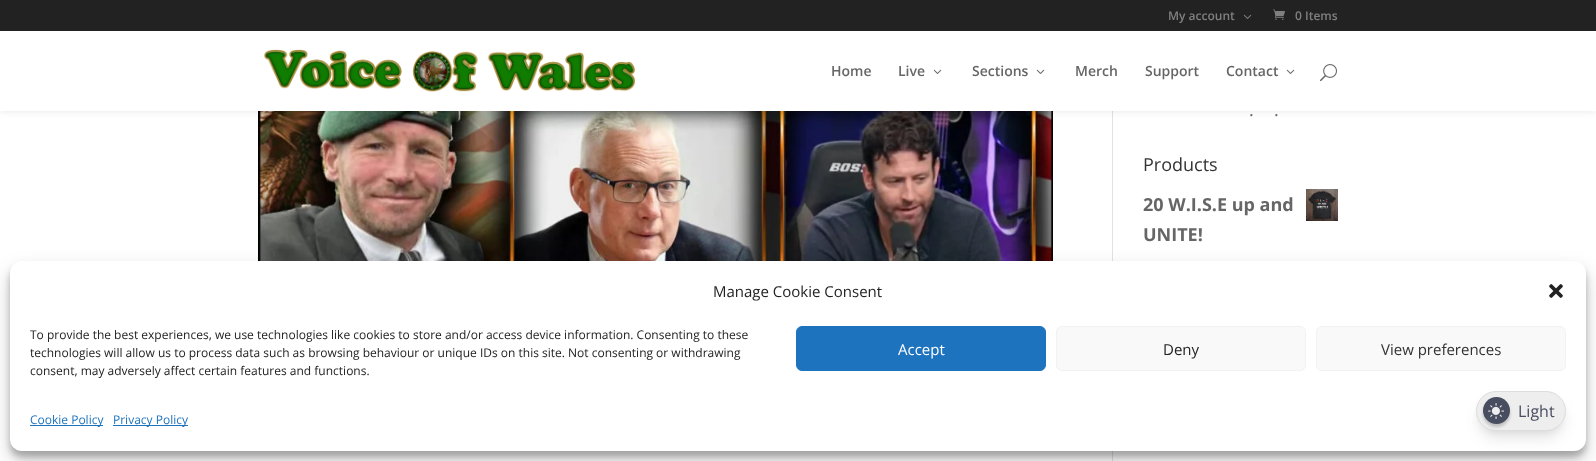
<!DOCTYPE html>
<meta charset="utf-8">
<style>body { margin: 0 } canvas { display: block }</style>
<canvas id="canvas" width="1596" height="461"></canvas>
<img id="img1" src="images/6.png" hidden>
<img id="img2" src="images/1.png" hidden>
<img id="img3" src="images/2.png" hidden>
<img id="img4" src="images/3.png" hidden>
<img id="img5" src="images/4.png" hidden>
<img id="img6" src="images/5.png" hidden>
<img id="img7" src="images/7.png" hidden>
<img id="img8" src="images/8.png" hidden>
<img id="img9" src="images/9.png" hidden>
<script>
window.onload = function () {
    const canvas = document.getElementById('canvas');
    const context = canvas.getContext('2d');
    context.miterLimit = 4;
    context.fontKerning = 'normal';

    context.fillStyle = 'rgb(255, 255, 255)';
    context.fillRect(0, 0, 1596, 461);
    context.fillStyle = 'rgb(226, 226, 226)';
    context.fillRect(1112, 111, 1, 350);
    context.drawImage(document.getElementById('img1'), 258, 111, 795, 150);
    context.fillStyle = 'rgba(0, 0, 0, 0.1)';
    context.filter = 'blur(3.5px)';
    context.beginPath();
    context.rect(0, 31, 1596, 80);
    context.fill();
    context.filter = 'none';
    context.fillStyle = 'rgb(34, 34, 34)';
    context.fillRect(0, 0, 1596, 31);
    context.drawImage(document.getElementById('img2'), 1243, 14, 9, 5);
    context.drawImage(document.getElementById('img3'), 1273, 9, 12, 11);
    context.fillStyle = 'rgb(255, 255, 255)';
    context.fillRect(0, 31, 1596, 80);
    context.drawImage(document.getElementById('img4'), 264, 49, 372, 43);
    context.drawImage(document.getElementById('img5'), 933, 69, 9, 5);
    context.drawImage(document.getElementById('img5'), 1036, 69, 9, 5);
    context.drawImage(document.getElementById('img5'), 1286, 69, 9, 5);
    context.drawImage(document.getElementById('img6'), 1320, 64, 17, 18);
    context.drawImage(document.getElementById('img7'), 1306, 189, 32, 32);
    context.fillStyle = 'rgba(0, 0, 0, 0.23)';
    context.filter = 'blur(3px)';
    context.beginPath();
    context.roundRect(10, 267, 1576, 190, 12);
    context.fill();
    context.filter = 'none';
    context.fillStyle = 'rgba(0, 0, 0, 0.19)';
    context.filter = 'blur(10px)';
    context.beginPath();
    context.roundRect(10, 271, 1576, 190, 12);
    context.fill();
    context.filter = 'none';
    context.fillStyle = 'rgb(255, 255, 255)';
    context.beginPath();
    context.roundRect(10, 261, 1576, 190, 12);
    context.fill();
    context.drawImage(document.getElementById('img8'), 1549, 284, 14, 14);
    context.fillStyle = 'rgb(30, 115, 190)';
    context.beginPath();
    context.roundRect(796.5, 326.5, 249, 44, 5.5);
    context.fill();
    context.strokeStyle = 'rgb(30, 115, 190)';
    context.stroke();
    context.fillStyle = 'rgb(249, 249, 249)';
    context.beginPath();
    context.roundRect(1056.5, 326.5, 249, 44, 5.5);
    context.fill();
    context.strokeStyle = 'rgb(242, 242, 242)';
    context.stroke();
    context.beginPath();
    context.roundRect(1316.5, 326.5, 249, 44, 5.5);
    context.fill();
    context.stroke();
    context.fillStyle = 'rgb(30, 115, 190)';
    context.fillRect(30, 425, 73, 1);
    context.fillRect(113, 425, 75, 1);
    context.fillStyle = 'rgba(0, 0, 0, 0.05)';
    context.filter = 'blur(3px)';
    context.beginPath();
    context.roundRect(1478, 397, 86, 36, 18);
    context.fill();
    context.filter = 'none';
    context.fillStyle = 'rgba(0, 0, 0, 0.1)';
    context.filter = 'blur(7.5px)';
    context.beginPath();
    context.roundRect(1479, 404, 84, 34, 17);
    context.fill();
    context.filter = 'none';
    context.fillStyle = 'rgb(238, 238, 238)';
    context.beginPath();
    context.roundRect(1476.5, 391.5, 89, 39, 19.5);
    context.fill();
    context.strokeStyle = 'rgb(221, 221, 221)';
    context.stroke();
    context.fillStyle = 'rgba(0, 0, 0, 0.2)';
    context.filter = 'blur(1.5px)';
    context.beginPath();
    context.roundRect(1483, 400, 27, 27, 13.5);
    context.fill();
    context.filter = 'none';
    context.fillStyle = 'rgb(72, 77, 96)';
    context.beginPath();
    context.arc(1496.5, 410.5, 13.5, 0, 2 * Math.PI);
    context.fill();
    context.drawImage(document.getElementById('img9'), 1488, 403, 16, 16);
    context.font = '600 12px Open Sans';
    context.fillStyle = 'rgb(128, 128, 128)';
    context.fillText('My account', 1168, 20);
    context.fillText('0 Items', 1295, 20);
    context.font = '600 14px Open Sans';
    context.fillStyle = 'rgb(102, 102, 102)';
    context.fillText('Home', 831, 76);
    context.fillText('Live', 898, 76);
    context.fillText('Sections', 972, 76);
    context.fillText('Merch', 1075, 76);
    context.fillText('Support', 1145, 76);
    context.fillText('Contact', 1226, 76);
    context.font = '18px Open Sans';
    context.fillText('.', 1249, 116);
    context.fillText('.', 1274, 116);
    context.fillStyle = 'rgb(51, 51, 51)';
    context.fillText('Products', 1143, 171);
    context.font = 'bold 18px Open Sans';
    context.fillStyle = 'rgb(102, 102, 102)';
    context.fillText('20 W.I.S.E up and', 1143, 211);
    context.fillText('UNITE!', 1143, 241);
    context.font = '15px Open Sans';
    context.fillStyle = 'rgb(34, 34, 34)';
    context.fillText('Manage Cookie Consent', 713, 297);
    context.font = '12px Open Sans';
    context.fillText('To provide the best experiences, we use technologies like cookies to store and/or access device information. Consenting to these', 30, 339);
    context.fillText('technologies will allow us to process data such as browsing behaviour or unique IDs on this site. Not consenting or withdrawing', 30, 357);
    context.fillText('consent, may adversely affect certain features and functions.', 30, 375);
    context.font = '15px Open Sans';
    context.fillStyle = 'rgb(255, 255, 255)';
    context.fillText('Accept', 898, 355);
    context.fillStyle = 'rgb(34, 34, 34)';
    context.fillText('Deny', 1163, 355);
    context.fillStyle = 'rgb(51, 51, 51)';
    context.fillText('View preferences', 1381, 355);
    context.font = '12px Open Sans';
    context.fillStyle = 'rgb(30, 115, 190)';
    context.fillText('Cookie Policy', 30, 424);
    context.fillText('Privacy Policy', 113, 424);
    context.font = '16px Open Sans';
    context.fillStyle = 'rgb(72, 77, 96)';
    context.fillText('Light', 1518, 417);
};
</script>
